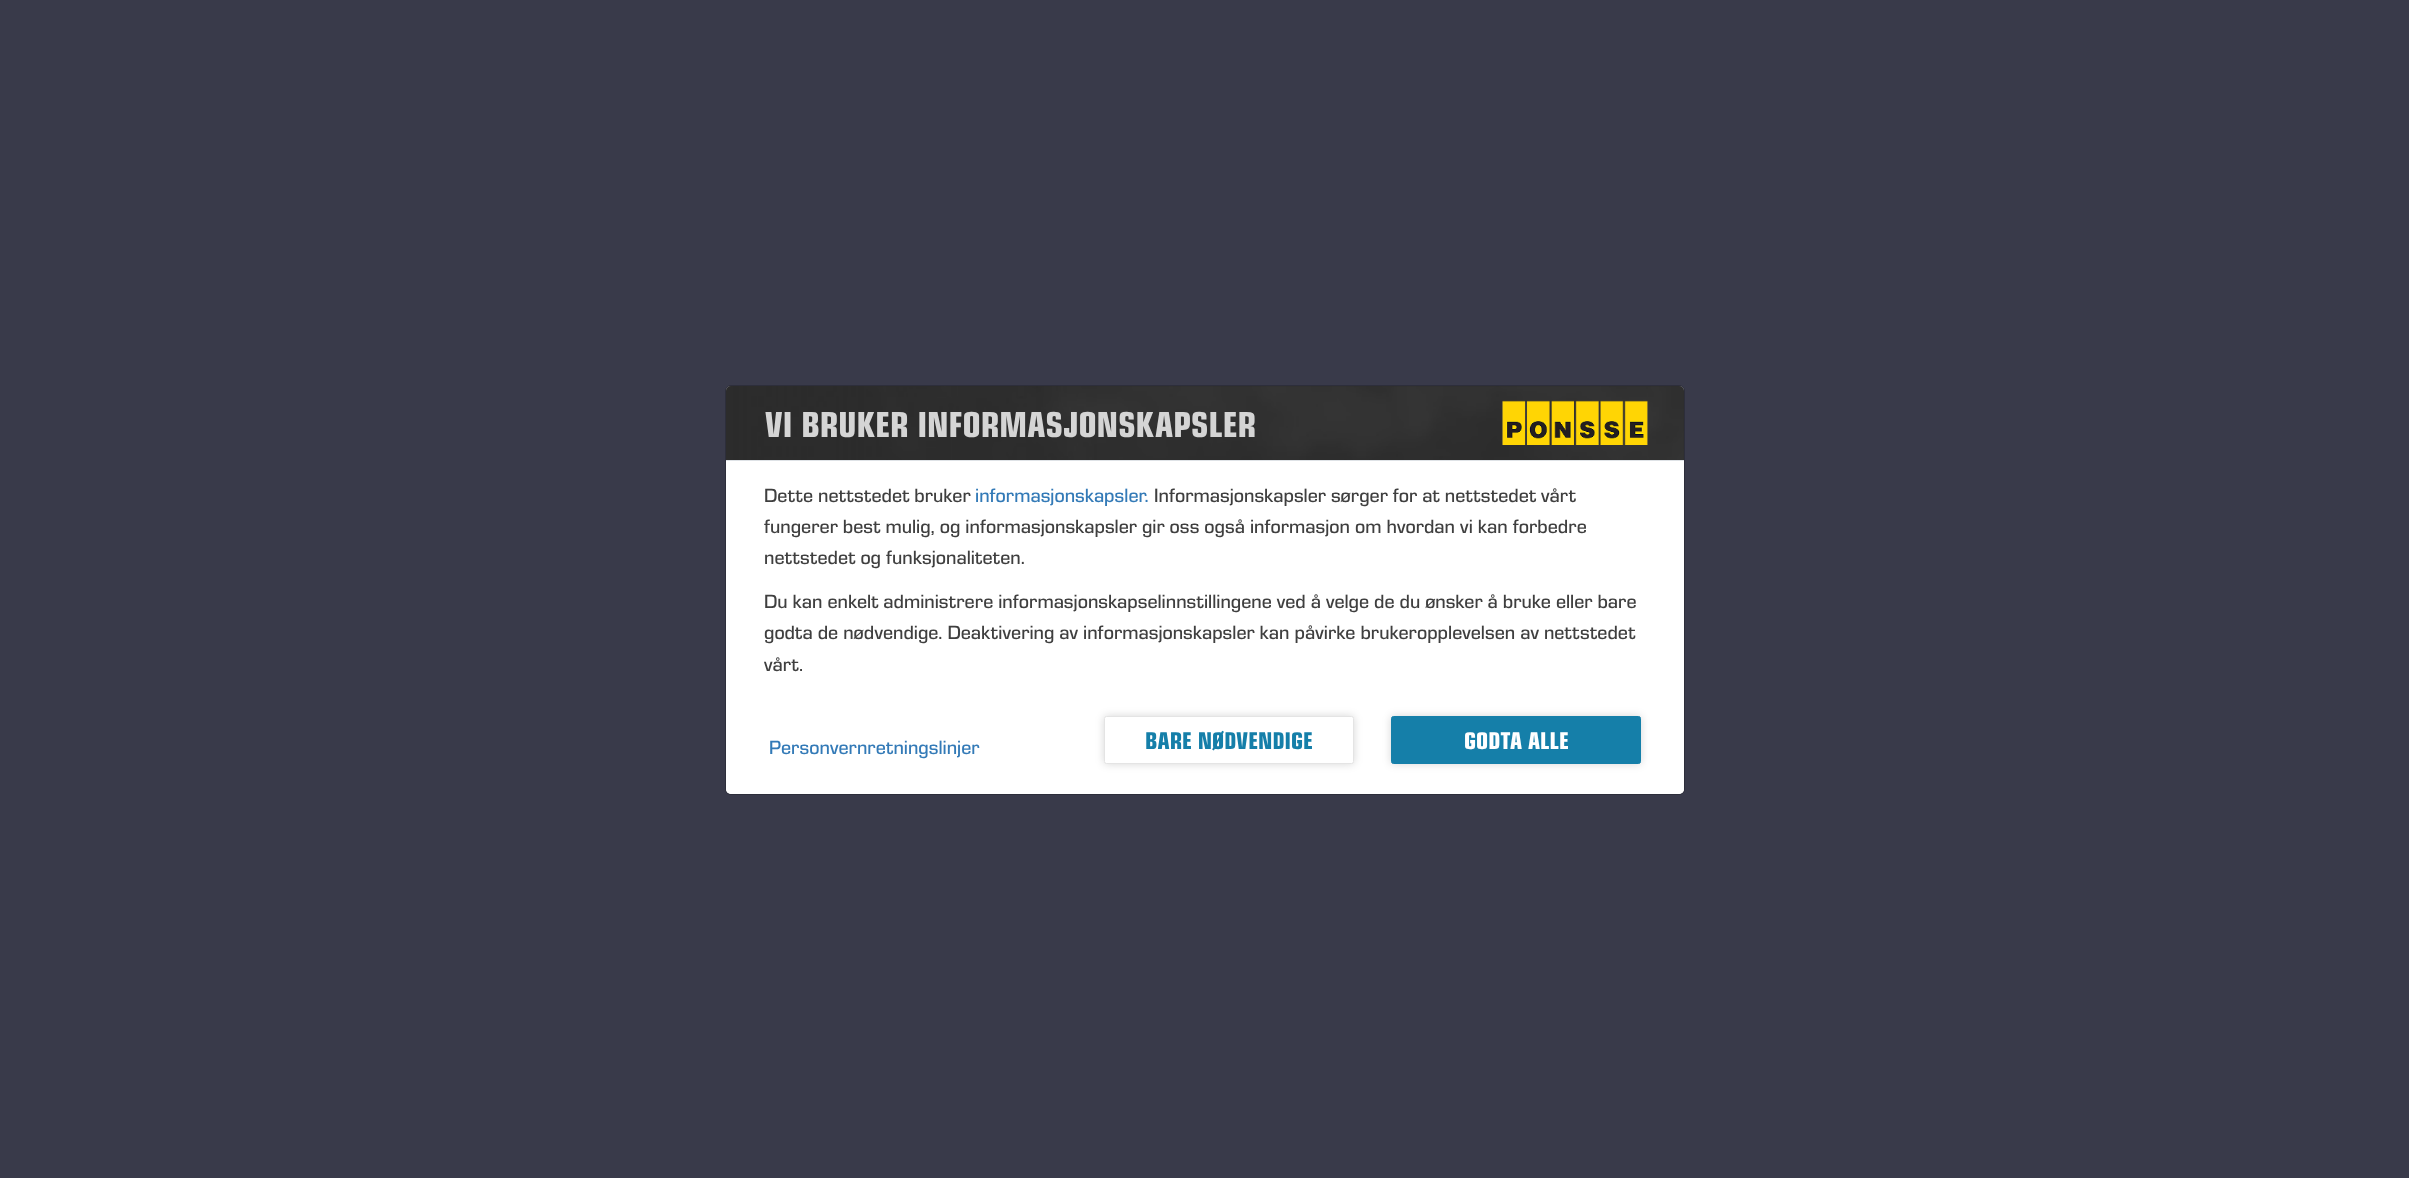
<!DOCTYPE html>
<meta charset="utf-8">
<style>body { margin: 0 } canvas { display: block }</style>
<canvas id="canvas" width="2409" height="1178"></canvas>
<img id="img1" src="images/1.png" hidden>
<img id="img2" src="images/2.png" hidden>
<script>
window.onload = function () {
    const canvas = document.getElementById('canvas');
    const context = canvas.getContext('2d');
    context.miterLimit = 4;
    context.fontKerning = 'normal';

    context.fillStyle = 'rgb(57, 58, 74)';
    context.fillRect(0, 0, 2409, 1178);
    context.fillStyle = 'rgb(255, 255, 255)';
    context.beginPath();
    context.roundRect(726, 386, 958, 408, 5);
    context.fill();
    context.beginPath();
    context.roundRect(725.5, 385.5, 959, 409, 5.5);
    context.strokeStyle = 'rgba(0, 0, 0, 0.2)';
    context.stroke();
    context.fillStyle = 'rgb(44, 44, 44)';
    context.beginPath();
    context.roundRect(726, 386, 958, 74, [5, 5, 0, 0]);
    context.fill();
    context.drawImage(document.getElementById('img1'), 726, 386, 958, 74);
    context.fillStyle = 'rgb(222, 226, 230)';
    context.fillRect(726, 460, 958, 1);
    context.drawImage(document.getElementById('img2'), 1502, 400, 146, 45);
    context.fillStyle = 'rgb(255, 255, 255)';
    context.beginPath();
    context.roundRect(726, 711, 958, 83, [0, 0, 5, 5]);
    context.fill();
    context.fillStyle = 'rgba(0, 0, 0, 0.16)';
    context.filter = 'blur(4px)';
    context.beginPath();
    context.roundRect(1104, 716, 250, 48, 2.5);
    context.fill();
    context.filter = 'none';
    context.fillStyle = 'rgb(255, 255, 255)';
    context.beginPath();
    context.roundRect(1104.5, 716.5, 249, 47, 2);
    context.fill();
    context.strokeStyle = 'rgb(228, 228, 228)';
    context.stroke();
    context.fillStyle = 'rgba(0, 0, 0, 0.16)';
    context.filter = 'blur(4px)';
    context.beginPath();
    context.roundRect(1391, 716, 250, 48, 2.5);
    context.fill();
    context.filter = 'none';
    context.fillStyle = 'rgb(21, 127, 169)';
    context.beginPath();
    context.roundRect(1391.5, 716.5, 249, 47, 2);
    context.fill();
    context.strokeStyle = 'rgb(21, 127, 169)';
    context.stroke();
    context.font = '900 37.5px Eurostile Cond';
    context.fillStyle = 'rgb(213, 213, 213)';
    context.fillText('VI BRUKER INFORMASJONSKAPSLER', 765, 437);
    context.font = '500 20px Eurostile';
    context.fillStyle = 'rgb(63, 63, 63)';
    context.fillText('Dette nettstedet bruker', 764, 502);
    context.fillStyle = 'rgb(51, 122, 183)';
    context.fillText('informasjonskapsler.', 975, 502);
    context.fillStyle = 'rgb(63, 63, 63)';
    context.fillText('Informasjonskapsler sørger for at nettstedet vårt', 1154, 502);
    context.fillText('fungerer best mulig, og informasjonskapsler gir oss også informasjon om hvordan vi kan forbedre', 764, 533);
    context.fillText('nettstedet og funksjonaliteten.', 764, 564);
    context.fillText('Du kan enkelt administrere informasjonskapselinnstillingene ved å velge de du ønsker å bruke eller bare', 764, 608);
    context.fillText('godta de nødvendige. Deaktivering av informasjonskapsler kan påvirke brukeropplevelsen av nettstedet', 764, 639);
    context.fillText('vårt.', 764, 671);
    context.fillStyle = 'rgb(51, 122, 183)';
    context.fillText('Personvernretningslinjer', 769, 754);
    context.font = '900 25px Eurostile Cond';
    context.fillStyle = 'rgb(21, 127, 169)';
    context.fillText('BARE NØDVENDIGE', 1145, 749);
    context.fillStyle = 'rgb(255, 255, 255)';
    context.fillText('GODTA ALLE', 1464, 749);
};
</script>
